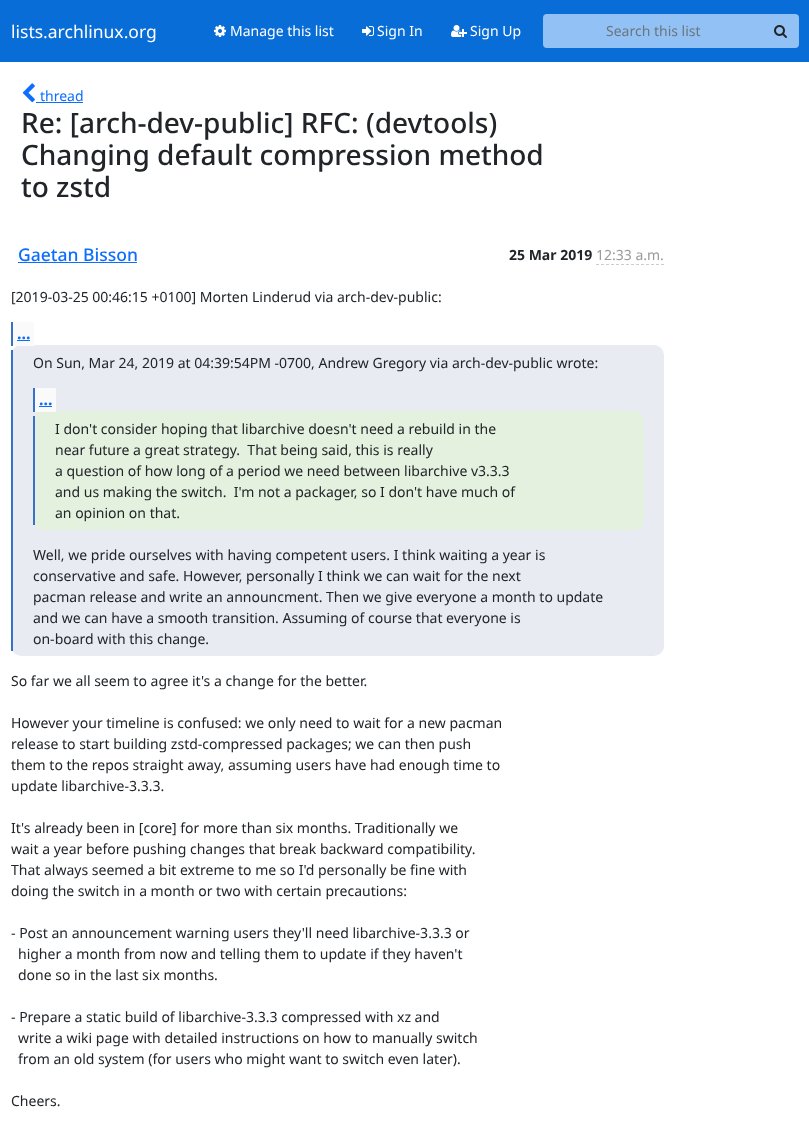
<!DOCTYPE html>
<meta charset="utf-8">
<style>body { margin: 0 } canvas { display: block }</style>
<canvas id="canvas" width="809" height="1130"></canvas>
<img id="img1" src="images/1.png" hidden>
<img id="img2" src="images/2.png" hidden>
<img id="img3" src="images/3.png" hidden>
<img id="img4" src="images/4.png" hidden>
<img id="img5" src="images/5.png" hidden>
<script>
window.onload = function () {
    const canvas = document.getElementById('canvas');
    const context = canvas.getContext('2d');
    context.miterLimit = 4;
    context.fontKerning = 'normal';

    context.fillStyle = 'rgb(255, 255, 255)';
    context.fillRect(0, 0, 809, 1130);
    context.fillStyle = 'rgb(8, 109, 215)';
    context.fillRect(0, 0, 809, 62);
    context.drawImage(document.getElementById('img1'), 214, 25, 12, 12);
    context.drawImage(document.getElementById('img2'), 362, 26, 12, 10);
    context.drawImage(document.getElementById('img3'), 451, 25, 16, 12);
    context.fillStyle = 'rgb(146, 194, 245)';
    context.beginPath();
    context.roundRect(543, 14, 221, 34, [4, 0, 0, 4]);
    context.fill();
    context.beginPath();
    context.roundRect(763, 14, 36, 34, [0, 4, 4, 0]);
    context.fill();
    context.drawImage(document.getElementById('img4'), 774, 25, 13, 13);
    context.drawImage(document.getElementById('img5'), 22, 83, 13, 20);
    context.fillStyle = 'rgb(13, 110, 253)';
    context.fillRect(36, 102, 47, 1);
    context.fillRect(18, 262, 119, 1);
    context.beginPath();
    context.moveTo(596, 264.5);
    context.lineTo(664, 264.5);
    context.strokeStyle = 'rgb(204, 204, 204)';
    context.setLineDash([3, 2]);
    context.stroke();
    context.fillStyle = 'rgb(232, 236, 242)';
    context.beginPath();
    context.roundRect(11, 345, 653, 311, 10);
    context.fill();
    context.fillStyle = 'rgb(250, 250, 250)';
    context.fillRect(13, 322, 21, 24);
    context.fillStyle = 'rgb(55, 113, 200)';
    context.fillRect(11, 322, 2, 24);
    context.fillStyle = 'rgb(13, 110, 253)';
    context.fillRect(17, 340, 13, 1);
    context.fillStyle = 'rgb(55, 113, 200)';
    context.fillRect(11, 350, 2, 301);
    context.fillStyle = 'rgb(228, 241, 223)';
    context.beginPath();
    context.roundRect(33, 411, 611, 119, 10);
    context.fill();
    context.fillStyle = 'rgb(250, 250, 250)';
    context.fillRect(35, 388, 21, 24);
    context.fillStyle = 'rgb(55, 113, 200)';
    context.fillRect(33, 388, 2, 24);
    context.fillStyle = 'rgb(13, 110, 253)';
    context.fillRect(39, 406, 13, 1);
    context.fillStyle = 'rgb(55, 113, 200)';
    context.fillRect(33, 416, 2, 109);
    context.font = '17.5px Noto Sans';
    context.fillStyle = 'rgb(255, 255, 255)';
    context.fillText('lists.archlinux.org', 11, 38);
    context.font = '14px Noto Sans';
    context.fillText('Manage this list', 230, 36);
    context.fillText('Sign In', 377, 36);
    context.fillText('Sign Up', 470, 36);
    context.fillStyle = 'rgb(108, 117, 125)';
    context.fillText('Search this list', 606, 36);
    context.fillStyle = 'rgb(13, 110, 253)';
    context.fillText('thread', 40, 101);
    context.font = '500 28px Noto Sans';
    context.fillStyle = 'rgb(33, 37, 41)';
    context.fillText('Re: [arch-dev-public] RFC: (devtools)', 21, 133);
    context.fillText('Changing default compression method', 21, 165);
    context.fillText('to zstd', 21, 197);
    context.font = '500 17.5px Noto Sans';
    context.fillStyle = 'rgb(13, 110, 253)';
    context.fillText('Gaetan Bisson', 18, 261);
    context.font = 'bold 14px Noto Sans';
    context.fillStyle = 'rgb(33, 37, 41)';
    context.fillText('25 Mar 2019', 509, 260);
    context.font = '14px Noto Sans';
    context.fillStyle = 'rgb(153, 153, 153)';
    context.fillText('12:33 a.m.', 596, 260);
    context.fillStyle = 'rgb(33, 37, 41)';
    context.fillText('[2019-03-25 00:46:15 +0100] Morten Linderud via arch-dev-public:', 11, 302);
    context.font = 'bold 16px Noto Sans';
    context.fillStyle = 'rgb(13, 110, 253)';
    context.fillText('...', 17, 339);
    context.font = '14px Noto Sans';
    context.fillStyle = 'rgb(33, 37, 41)';
    context.fillText('On Sun, Mar 24, 2019 at 04:39:54PM -0700, Andrew Gregory via arch-dev-public wrote:', 33, 368);
    context.font = 'bold 16px Noto Sans';
    context.fillStyle = 'rgb(13, 110, 253)';
    context.fillText('...', 39, 405);
    context.font = '14px Noto Sans';
    context.fillStyle = 'rgb(33, 37, 41)';
    context.fillText('I don\'t consider hoping that libarchive doesn\'t need a rebuild in the', 55, 434);
    context.fillText('near future a great strategy.  That being said, this is really', 55, 455);
    context.fillText('a question of how long of a period we need between libarchive v3.3.3', 55, 476);
    context.fillText('and us making the switch.  I\'m not a packager, so I don\'t have much of', 55, 497);
    context.fillText('an opinion on that.', 55, 518);
    context.fillText('Well, we pride ourselves with having competent users. I think waiting a year is', 33, 560);
    context.fillText('conservative and safe. However, personally I think we can wait for the next', 33, 581);
    context.fillText('pacman release and write an announcment. Then we give everyone a month to update', 33, 602);
    context.fillText('and we can have a smooth transition. Assuming of course that everyone is', 33, 623);
    context.fillText('on-board with this change.', 33, 644);
    context.fillText('So far we all seem to agree it\'s a change for the better.', 11, 686);
    context.fillText('However your timeline is confused: we only need to wait for a new pacman', 11, 728);
    context.fillText('release to start building zstd-compressed packages; we can then push', 11, 749);
    context.fillText('them to the repos straight away, assuming users have had enough time to', 11, 770);
    context.fillText('update libarchive-3.3.3.', 11, 791);
    context.fillText('It\'s already been in [core] for more than six months. Traditionally we', 11, 833);
    context.fillText('wait a year before pushing changes that break backward compatibility.', 11, 854);
    context.fillText('That always seemed a bit extreme to me so I\'d personally be fine with', 11, 875);
    context.fillText('doing the switch in a month or two with certain precautions:', 11, 896);
    context.fillText('- Post an announcement warning users they\'ll need libarchive-3.3.3 or', 11, 938);
    context.fillText('higher a month from now and telling them to update if they haven\'t', 18, 959);
    context.fillText('done so in the last six months.', 18, 980);
    context.fillText('- Prepare a static build of libarchive-3.3.3 compressed with xz and', 11, 1022);
    context.fillText('write a wiki page with detailed instructions on how to manually switch', 18, 1043);
    context.fillText('from an old system (for users who might want to switch even later).', 18, 1064);
    context.fillText('Cheers.', 11, 1106);
};
</script>
